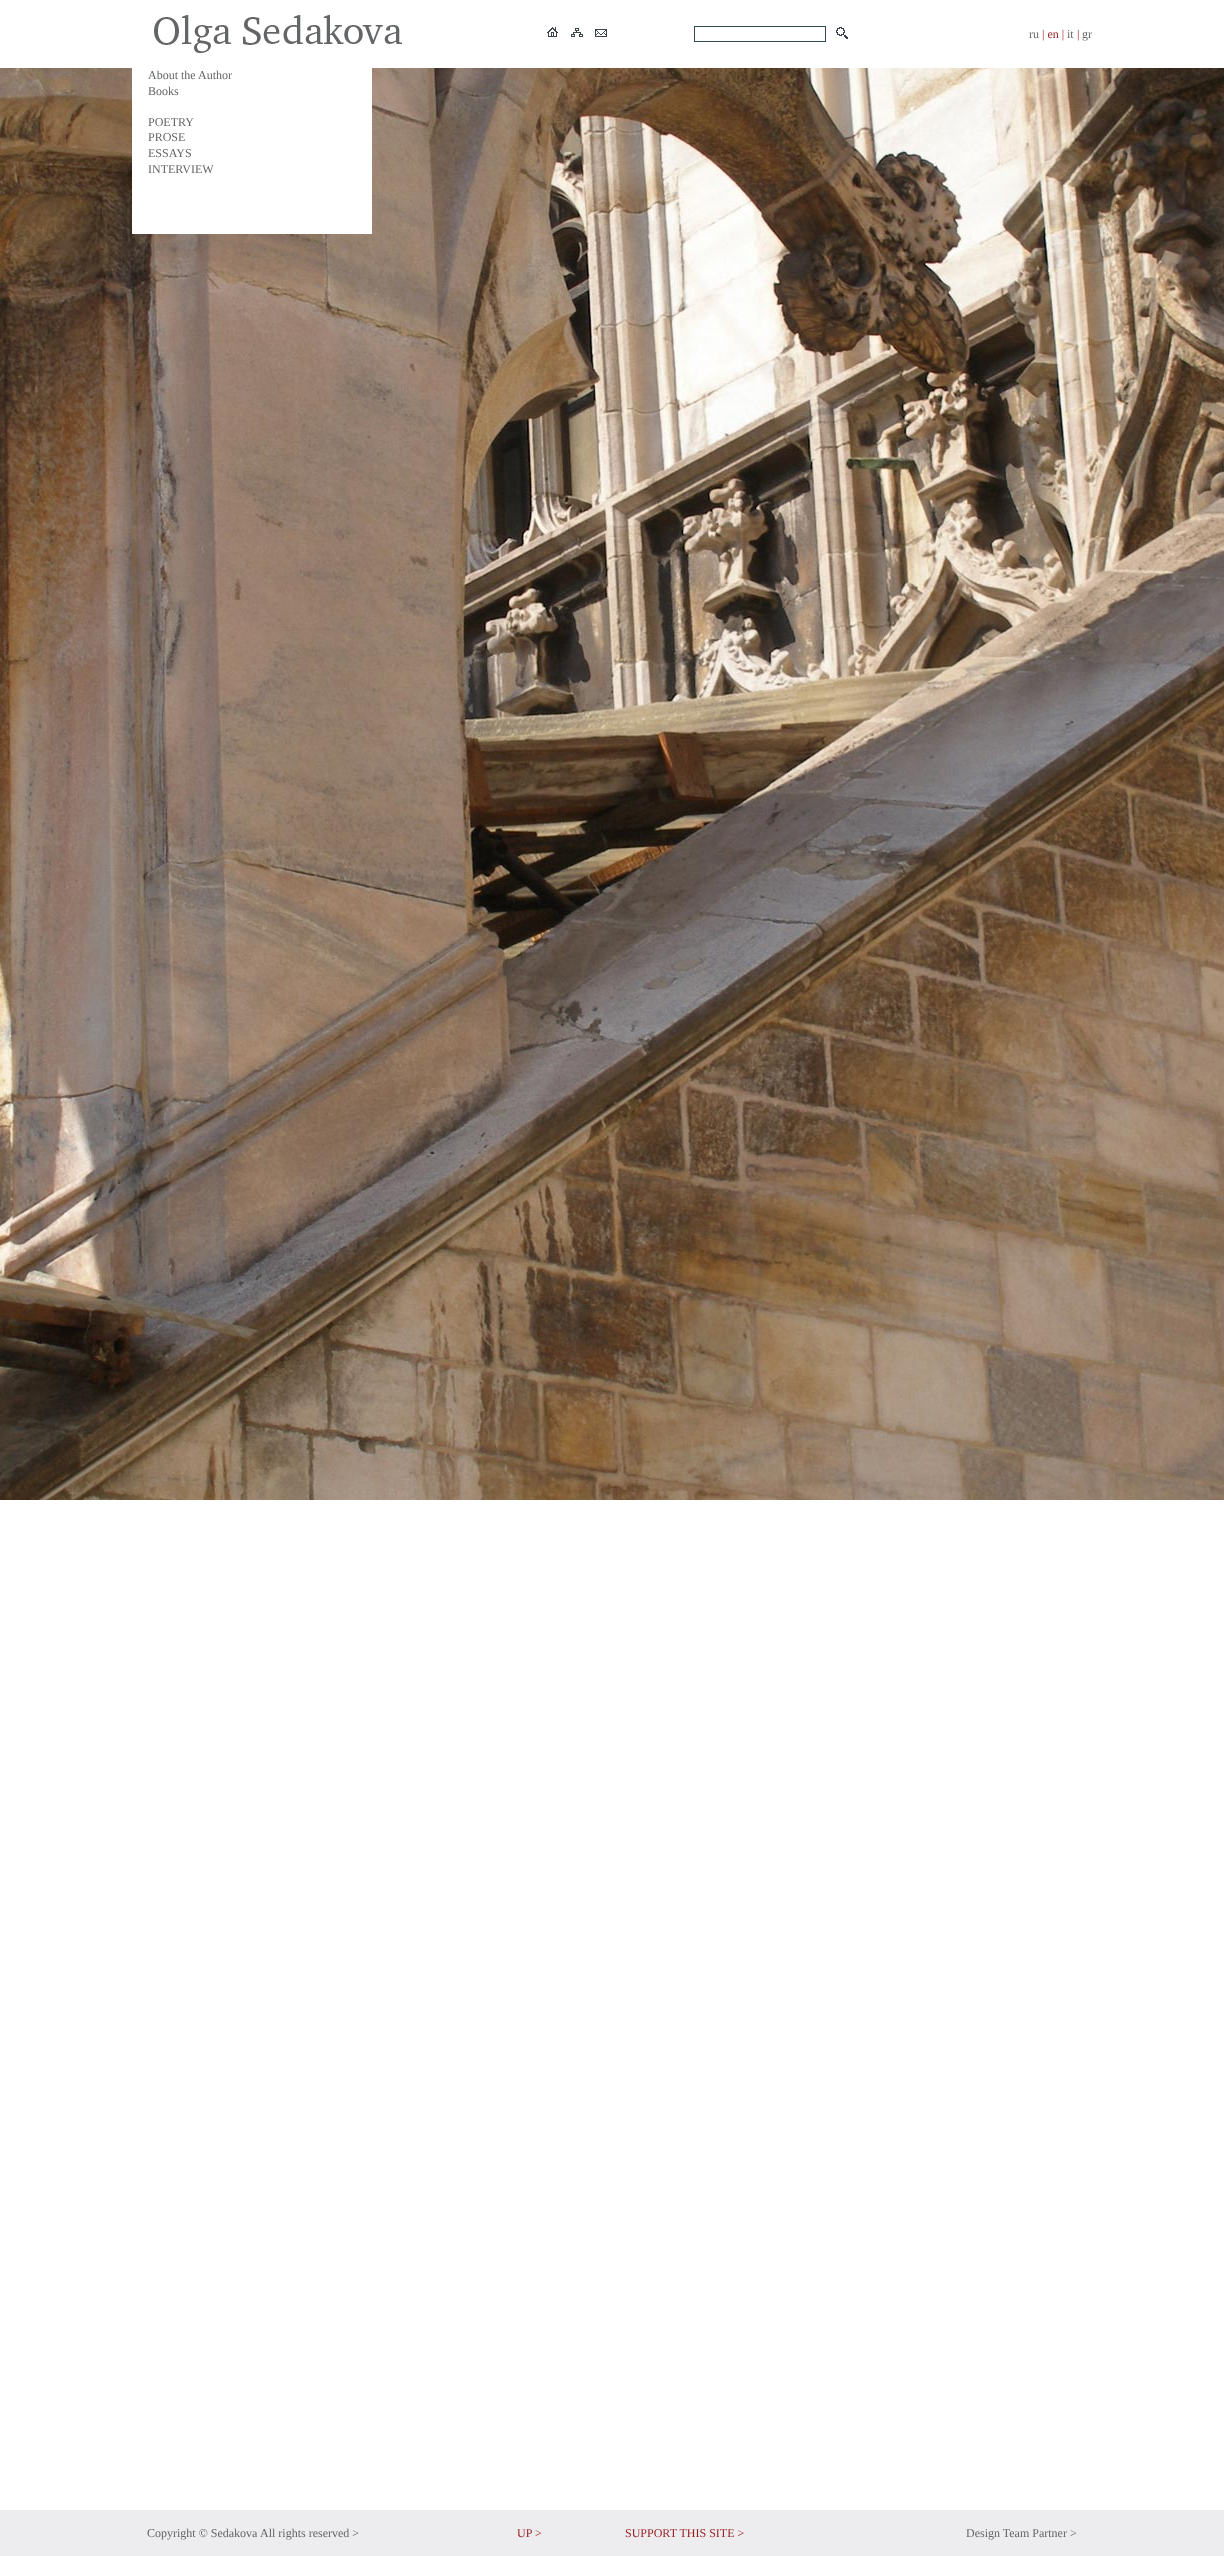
<!DOCTYPE html>
<meta charset="utf-8">
<style>body { margin: 0 } canvas { display: block }</style>
<canvas id="canvas" width="1224" height="2556"></canvas>
<img id="img1" src="images/1.png" hidden>
<img id="img2" src="images/2.png" hidden>
<img id="img3" src="images/3.png" hidden>
<img id="img4" src="images/4.png" hidden>
<img id="img5" src="images/5.png" hidden>
<img id="img6" src="images/6.png" hidden>
<script>
window.onload = function () {
    const canvas = document.getElementById('canvas');
    const context = canvas.getContext('2d');
    context.miterLimit = 4;
    context.fontKerning = 'normal';

    context.fillStyle = 'rgb(255, 255, 255)';
    context.fillRect(0, 0, 1224, 2556);
    context.drawImage(document.getElementById('img1'), 154, 15, 248, 38);
    context.drawImage(document.getElementById('img2'), 547, 27, 11, 10);
    context.drawImage(document.getElementById('img3'), 571, 28, 12, 9);
    context.drawImage(document.getElementById('img4'), 595, 29, 12, 8);
    context.strokeStyle = 'rgb(50, 75, 77)';
    context.strokeRect(694.5, 26.5, 131, 15);
    context.drawImage(document.getElementById('img5'), 836, 27, 12, 12);
    context.drawImage(document.getElementById('img6'), 0, 68, 1224, 1432);
    context.fillRect(132, 68, 240, 166);
    context.fillStyle = 'rgb(237, 237, 239)';
    context.fillRect(0, 2510, 1224, 46);
    context.font = '12px Liberation Serif';
    context.fillStyle = 'rgb(99, 101, 103)';
    context.fillText('ru', 1029, 38);
    context.fillStyle = 'rgb(151, 27, 30)';
    context.fillText('| en |', 1042, 38);
    context.fillStyle = 'rgb(99, 101, 103)';
    context.fillText('it', 1067, 38);
    context.fillStyle = 'rgb(151, 27, 30)';
    context.fillText('|', 1077, 38);
    context.fillStyle = 'rgb(99, 101, 103)';
    context.fillText('gr', 1082, 38);
    context.fillText('About the Author', 148, 79);
    context.fillText('Books', 148, 95);
    context.fillText('POETRY', 148, 126);
    context.fillText('PROSE', 148, 141);
    context.fillText('ESSAYS', 148, 157);
    context.fillText('INTERVIEW', 148, 173);
    context.fillText('Copyright © Sedakova', 147, 2537);
    context.fillText('All rights reserved >', 260, 2537);
    context.fillStyle = 'rgb(151, 27, 30)';
    context.fillText('UP >', 517, 2537);
    context.fillText('SUPPORT THIS SITE >', 625, 2537);
    context.fillStyle = 'rgb(99, 101, 103)';
    context.fillText('Design Team Partner >', 966, 2537);
};
</script>
